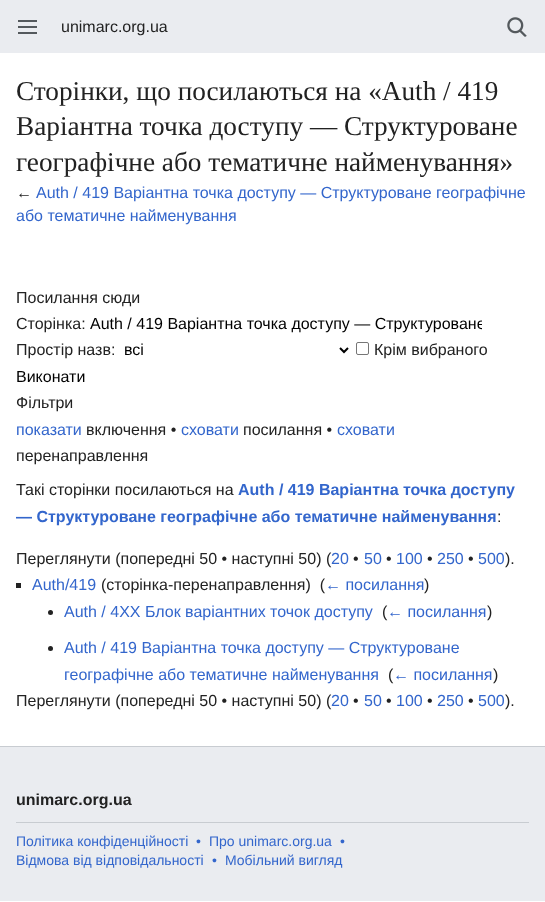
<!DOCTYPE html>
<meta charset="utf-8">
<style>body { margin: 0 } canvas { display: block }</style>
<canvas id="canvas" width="545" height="902"></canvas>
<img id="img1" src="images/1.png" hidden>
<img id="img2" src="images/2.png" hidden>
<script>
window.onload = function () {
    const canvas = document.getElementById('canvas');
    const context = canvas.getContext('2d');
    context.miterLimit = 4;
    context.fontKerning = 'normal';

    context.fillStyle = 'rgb(255, 255, 255)';
    context.fillRect(0, 0, 545, 902);
    context.fillStyle = 'rgb(234, 236, 240)';
    context.fillRect(0, 0, 545, 901);
    context.drawImage(document.getElementById('img1'), 18, 20, 19, 14);
    context.drawImage(document.getElementById('img2'), 507, 17, 20, 20);
    context.fillStyle = 'rgb(255, 255, 255)';
    context.fillRect(0, 53, 545, 693);
    context.beginPath();
    context.moveTo(340, 348);
    context.lineTo(344, 352);
    context.lineTo(348, 348);
    context.strokeStyle = 'rgb(0, 0, 0)';
    context.lineWidth = 2;
    context.stroke();
    context.beginPath();
    context.roundRect(356.5, 342.5, 12, 12, 1.5);
    context.strokeStyle = 'rgb(118, 118, 118)';
    context.lineWidth = 1;
    context.stroke();
    context.fillStyle = 'rgb(34, 34, 34)';
    context.fillRect(16, 583, 5, 5);
    context.beginPath();
    context.arc(50.5, 612.5, 2.5, 0, 2 * Math.PI);
    context.fill();
    context.beginPath();
    context.arc(50.5, 648.5, 2.5, 0, 2 * Math.PI);
    context.fill();
    context.fillStyle = 'rgb(200, 204, 209)';
    context.fillRect(0, 746, 545, 1);
    context.fillRect(16, 822, 513, 1);
    context.font = '16px Liberation Sans';
    context.fillStyle = 'rgb(34, 34, 34)';
    context.fillText('unimarc.org.ua', 61, 32);
    context.font = '27.25px Liberation Serif';
    context.fillText('Сторінки, що посилаються на «Auth / 419', 16, 100);
    context.fillText('Варіантна точка доступу — Структуроване', 16, 135);
    context.fillText('географічне або тематичне найменування»', 16, 171);
    context.font = '16px Liberation Sans';
    context.fillText('←', 16, 198);
    context.fillStyle = 'rgb(51, 102, 204)';
    context.fillText('Auth / 419 Варіантна точка доступу — Структуроване географічне', 36, 198);
    context.fillText('або тематичне найменування', 16, 221);
    context.fillStyle = 'rgb(34, 34, 34)';
    context.fillText('Посилання сюди', 16, 303);
    context.fillText('Сторінка:', 16, 329);
    context.save();
    context.beginPath();
    context.rect(90, 315, 392, 18);
    context.clip();
    context.fillStyle = 'rgb(0, 0, 0)';
    context.fillText('Auth / 419 Варіантна точка доступу — Структуроване', 90, 329);
    context.restore();
    context.fillText('Простір назв:', 16, 355);
    context.fillStyle = 'rgb(0, 0, 0)';
    context.fillText('всі', 124, 355);
    context.fillStyle = 'rgb(34, 34, 34)';
    context.fillText('Крім вибраного', 374, 355);
    context.fillStyle = 'rgb(0, 0, 0)';
    context.fillText('Виконати', 16, 382);
    context.fillStyle = 'rgb(34, 34, 34)';
    context.fillText('Фільтри', 16, 408);
    context.fillStyle = 'rgb(51, 102, 204)';
    context.fillText('показати', 16, 435);
    context.fillStyle = 'rgb(34, 34, 34)';
    context.fillText('включення •', 86, 435);
    context.fillStyle = 'rgb(51, 102, 204)';
    context.fillText('сховати', 181, 435);
    context.fillStyle = 'rgb(34, 34, 34)';
    context.fillText('посилання •', 243, 435);
    context.fillStyle = 'rgb(51, 102, 204)';
    context.fillText('сховати', 337, 435);
    context.fillStyle = 'rgb(34, 34, 34)';
    context.fillText('перенаправлення', 16, 461);
    context.fillText('Такі сторінки посилаються на', 16, 495);
    context.font = 'bold 16px Liberation Sans';
    context.fillStyle = 'rgb(51, 102, 204)';
    context.fillText('Auth / 419 Варіантна точка доступу', 238, 495);
    context.fillText('— Структуроване географічне або тематичне найменування', 16, 522);
    context.font = '16px Liberation Sans';
    context.fillStyle = 'rgb(34, 34, 34)';
    context.fillText(':', 497, 522);
    context.fillText('Переглянути (попередні 50 • наступні 50) (', 16, 564);
    context.fillStyle = 'rgb(51, 102, 204)';
    context.fillText('20', 331, 564);
    context.fillStyle = 'rgb(34, 34, 34)';
    context.fillText('•', 353, 564);
    context.fillStyle = 'rgb(51, 102, 204)';
    context.fillText('50', 364, 564);
    context.fillStyle = 'rgb(34, 34, 34)';
    context.fillText('•', 386, 564);
    context.fillStyle = 'rgb(51, 102, 204)';
    context.fillText('100', 396, 564);
    context.fillStyle = 'rgb(34, 34, 34)';
    context.fillText('•', 427, 564);
    context.fillStyle = 'rgb(51, 102, 204)';
    context.fillText('250', 437, 564);
    context.fillStyle = 'rgb(34, 34, 34)';
    context.fillText('•', 468, 564);
    context.fillStyle = 'rgb(51, 102, 204)';
    context.fillText('500', 478, 564);
    context.fillStyle = 'rgb(34, 34, 34)';
    context.fillText(').', 505, 564);
    context.fillStyle = 'rgb(51, 102, 204)';
    context.fillText('Auth/419', 32, 590);
    context.fillStyle = 'rgb(34, 34, 34)';
    context.fillText('(сторінка-перенаправлення)  (', 101, 590);
    context.fillStyle = 'rgb(51, 102, 204)';
    context.fillText('← посилання', 325, 590);
    context.fillStyle = 'rgb(34, 34, 34)';
    context.fillText(')', 424, 590);
    context.fillStyle = 'rgb(51, 102, 204)';
    context.fillText('Auth / 4XX Блок варіантних точок доступу', 64, 617);
    context.fillStyle = 'rgb(34, 34, 34)';
    context.fillText('(', 382, 617);
    context.fillStyle = 'rgb(51, 102, 204)';
    context.fillText('← посилання', 387, 617);
    context.fillStyle = 'rgb(34, 34, 34)';
    context.fillText(')', 487, 617);
    context.fillStyle = 'rgb(51, 102, 204)';
    context.fillText('Auth / 419 Варіантна точка доступу — Структуроване', 64, 653);
    context.fillText('географічне або тематичне найменування', 64, 680);
    context.fillStyle = 'rgb(34, 34, 34)';
    context.fillText('(', 388, 680);
    context.fillStyle = 'rgb(51, 102, 204)';
    context.fillText('← посилання', 393, 680);
    context.fillStyle = 'rgb(34, 34, 34)';
    context.fillText(')', 493, 680);
    context.fillText('Переглянути (попередні 50 • наступні 50) (', 16, 706);
    context.fillStyle = 'rgb(51, 102, 204)';
    context.fillText('20', 331, 706);
    context.fillStyle = 'rgb(34, 34, 34)';
    context.fillText('•', 353, 706);
    context.fillStyle = 'rgb(51, 102, 204)';
    context.fillText('50', 364, 706);
    context.fillStyle = 'rgb(34, 34, 34)';
    context.fillText('•', 386, 706);
    context.fillStyle = 'rgb(51, 102, 204)';
    context.fillText('100', 396, 706);
    context.fillStyle = 'rgb(34, 34, 34)';
    context.fillText('•', 427, 706);
    context.fillStyle = 'rgb(51, 102, 204)';
    context.fillText('250', 437, 706);
    context.fillStyle = 'rgb(34, 34, 34)';
    context.fillText('•', 468, 706);
    context.fillStyle = 'rgb(51, 102, 204)';
    context.fillText('500', 478, 706);
    context.fillStyle = 'rgb(34, 34, 34)';
    context.fillText(').', 505, 706);
    context.font = 'bold 16px Liberation Sans';
    context.fillText('unimarc.org.ua', 16, 805);
    context.font = '14px Liberation Sans';
    context.fillStyle = 'rgb(51, 102, 204)';
    context.fillText('Політика конфіденційності', 16, 846);
    context.fillText('•', 196, 846);
    context.fillText('Про unimarc.org.ua', 209, 846);
    context.fillText('•', 340, 846);
    context.fillText('Відмова від відповідальності', 16, 865);
    context.fillText('•', 212, 865);
    context.fillText('Мобільний вигляд', 225, 865);
};
</script>
